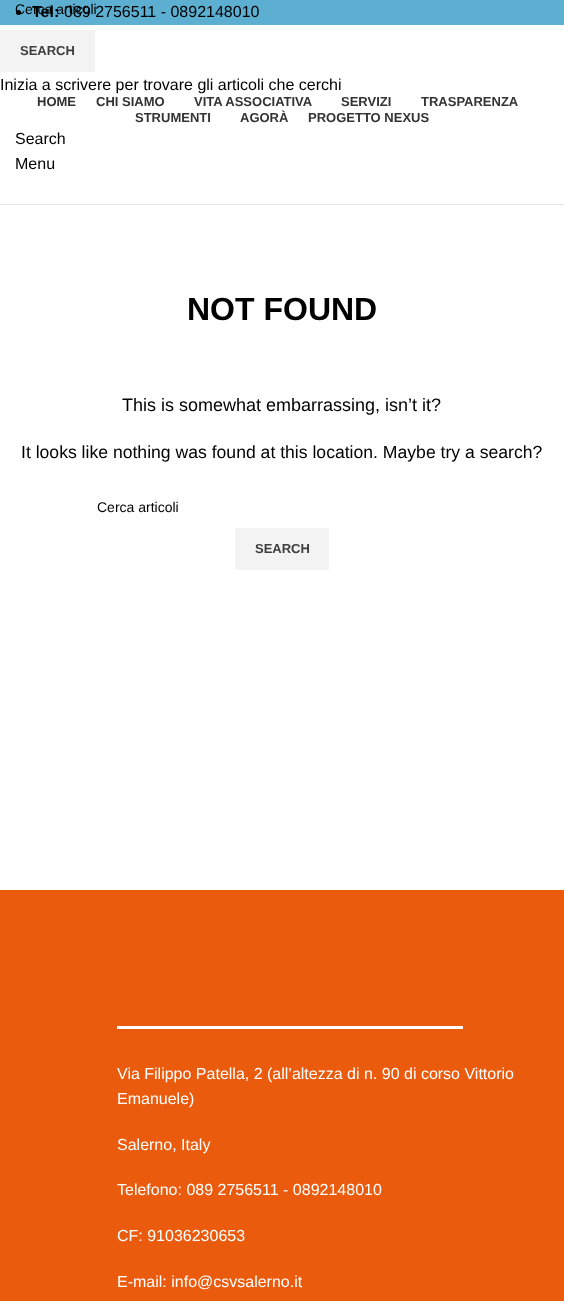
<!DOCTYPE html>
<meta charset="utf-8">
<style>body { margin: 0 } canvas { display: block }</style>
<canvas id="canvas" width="564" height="1301"></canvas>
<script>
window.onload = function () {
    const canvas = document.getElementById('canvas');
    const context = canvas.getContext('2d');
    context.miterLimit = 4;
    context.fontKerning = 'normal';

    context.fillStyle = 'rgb(255, 255, 255)';
    context.fillRect(0, 0, 564, 1301);
    context.fillStyle = 'rgb(243, 243, 243)';
    context.fillRect(0, 30, 95, 42);
    context.fillStyle = 'rgb(92, 175, 209)';
    context.fillRect(0, 0, 564, 25);
    context.fillStyle = 'rgb(0, 0, 0)';
    context.beginPath();
    context.arc(18.5, 12.5, 2.5, 0, 2 * Math.PI);
    context.fill();
    context.fillStyle = 'rgb(230, 230, 230)';
    context.fillRect(0, 204, 564, 1);
    context.fillStyle = 'rgb(243, 243, 243)';
    context.fillRect(235, 528, 94, 42);
    context.fillStyle = 'rgb(234, 91, 14)';
    context.fillRect(0, 890, 564, 411);
    context.fillStyle = 'rgb(255, 255, 255)';
    context.fillRect(117, 1026, 346, 3);
    context.font = 'bold 13px Liberation Sans';
    context.fillStyle = 'rgb(62, 62, 62)';
    context.fillText('SEARCH', 20, 55);
    context.font = '16px Liberation Sans';
    context.fillStyle = 'rgb(0, 0, 0)';
    context.fillText('Inizia a scrivere per trovare gli articoli che cerchi', 0, 90);
    context.font = 'bold 16px Liberation Sans';
    context.fillText('Tel:', 32, 17);
    context.font = '16px Liberation Sans';
    context.fillText('089 2756511 - 0892148010', 64, 17);
    context.font = '14px Liberation Sans';
    context.fillText('Cerca articoli', 15, 14);
    context.font = 'bold 13px Liberation Sans';
    context.fillStyle = 'rgb(51, 51, 51)';
    context.fillText('HOME', 37, 106);
    context.fillText('CHI SIAMO', 96, 106);
    context.fillText('VITA ASSOCIATIVA', 194, 106);
    context.fillText('SERVIZI', 341, 106);
    context.fillText('TRASPARENZA', 421, 106);
    context.fillText('STRUMENTI', 135, 122);
    context.fillText('AGORÀ', 240, 122);
    context.fillText('PROGETTO NEXUS', 308, 122);
    context.font = '16px Liberation Sans';
    context.fillStyle = 'rgb(0, 0, 0)';
    context.fillText('Search', 15, 144);
    context.fillText('Menu', 15, 169);
    context.font = 'bold 32px Liberation Sans';
    context.fillText('NOT FOUND', 187, 320);
    context.font = '18px Liberation Sans';
    context.fillText('This is somewhat embarrassing, isn’t it?', 122, 411);
    context.font = '17.6px Liberation Sans';
    context.fillText('It looks like nothing was found at this location. Maybe try a search?', 21, 458);
    context.font = '14px Liberation Sans';
    context.fillText('Cerca articoli', 97, 512);
    context.font = 'bold 13px Liberation Sans';
    context.fillStyle = 'rgb(62, 62, 62)';
    context.fillText('SEARCH', 255, 553);
    context.font = '16px Liberation Sans';
    context.fillStyle = 'rgb(255, 255, 255)';
    context.fillText('Via Filippo Patella, 2 (all’altezza di n. 90 di corso Vittorio', 117, 1079);
    context.fillText('Emanuele)', 117, 1104);
    context.fillText('Salerno, Italy', 117, 1150);
    context.fillText('Telefono: 089 2756511 - 0892148010', 117, 1195);
    context.fillText('CF: 91036230653', 117, 1241);
    context.fillText('E-mail: info@csvsalerno.it', 117, 1287);
};
</script>
